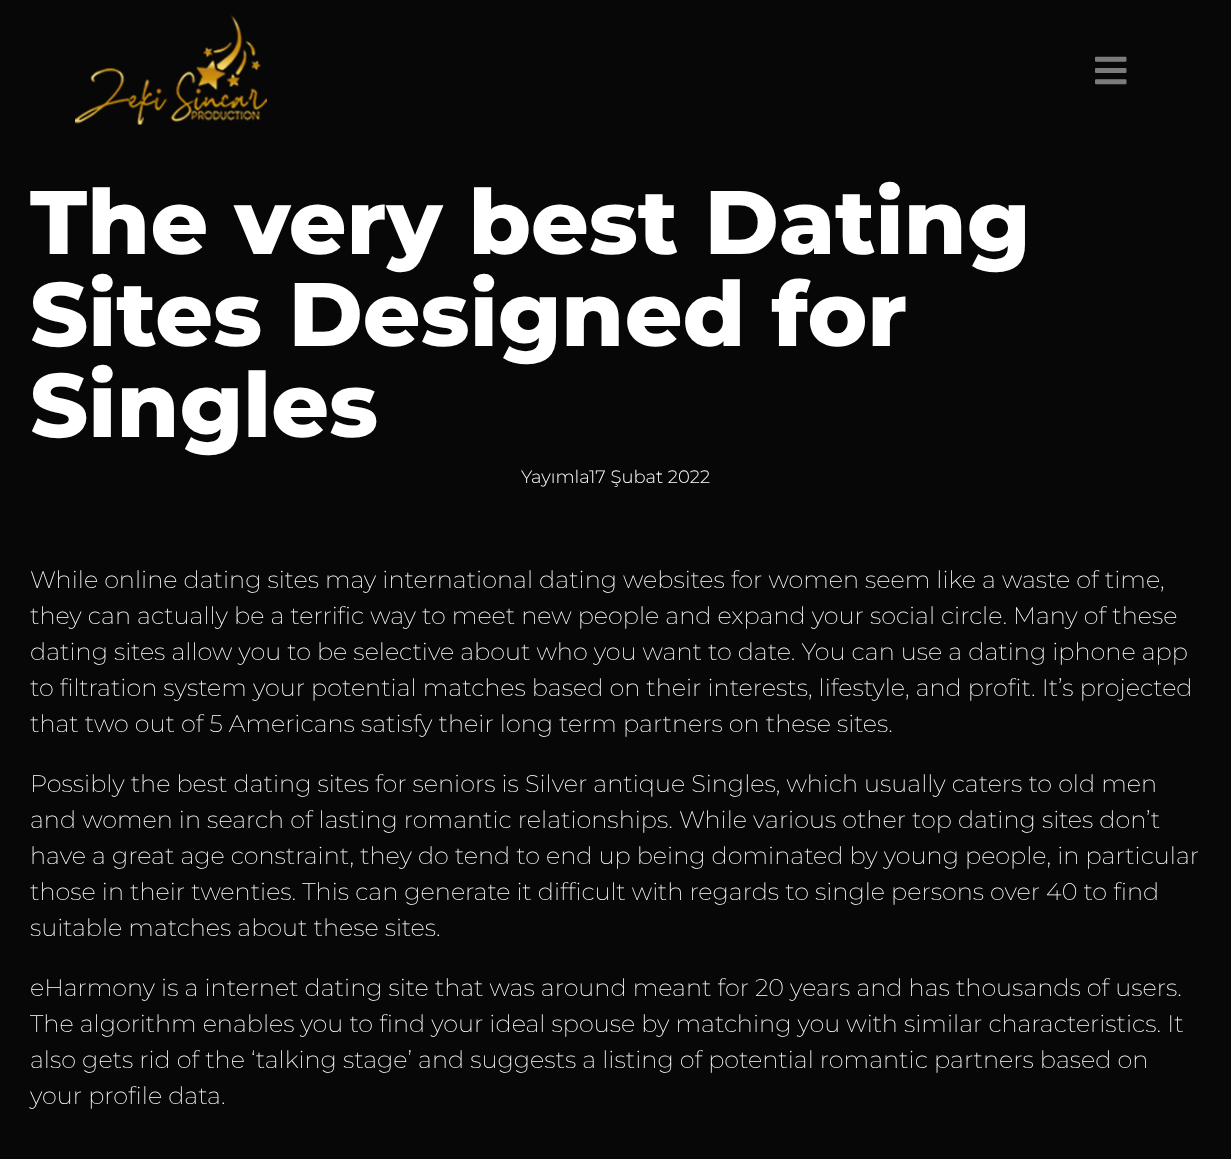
<!DOCTYPE html>
<meta charset="utf-8">
<style>body { margin: 0 } canvas { display: block }</style>
<canvas id="canvas" width="1231" height="1159"></canvas>
<img id="img1" src="images/1.png" hidden>
<img id="img2" src="images/2.png" hidden>
<script>
window.onload = function () {
    const canvas = document.getElementById('canvas');
    const context = canvas.getContext('2d');
    context.miterLimit = 4;
    context.fontKerning = 'normal';

    context.fillStyle = 'rgb(7, 7, 7)';
    context.fillRect(0, 0, 1231, 1159);
    context.drawImage(document.getElementById('img1'), 75, 15, 192, 110);
    context.drawImage(document.getElementById('img2'), 1095, 56, 32, 29);
    context.font = '800 90px Montserrat';
    context.fillStyle = 'rgb(255, 255, 255)';
    context.fillText('The very best Dating', 30, 254);
    context.fillText('Sites Designed for', 30, 346);
    context.fillText('Singles', 30, 437);
    context.font = '300 18px Montserrat';
    context.fillText('Yayımla', 521, 483);
    context.fillText('17 Şubat 2022', 589, 483);
    context.font = '200 24px Montserrat';
    context.fillText('While online dating sites may international dating websites for women seem like a waste of time,', 30, 588);
    context.fillText('they can actually be a terrific way to meet new people and expand your social circle. Many of these', 30, 624);
    context.fillText('dating sites allow you to be selective about who you want to date. You can use a dating iphone app', 30, 660);
    context.fillText('to filtration system your potential matches based on their interests, lifestyle, and profit. It’s projected', 30, 696);
    context.fillText('that two out of 5 Americans satisfy their long term partners on these sites.', 30, 732);
    context.fillText('Possibly the best dating sites for seniors is Silver antique Singles, which usually caters to old men', 30, 792);
    context.fillText('and women in search of lasting romantic relationships. While various other top dating sites don’t', 30, 828);
    context.fillText('have a great age constraint, they do tend to end up being dominated by young people, in particular', 30, 864);
    context.fillText('those in their twenties. This can generate it difficult with regards to single persons over 40 to find', 30, 900);
    context.fillText('suitable matches about these sites.', 30, 936);
    context.fillText('eHarmony is a internet dating site that was around meant for 20 years and has thousands of users.', 30, 996);
    context.fillText('The algorithm enables you to find your ideal spouse by matching you with similar characteristics. It', 30, 1032);
    context.fillText('also gets rid of the ‘talking stage’ and suggests a listing of potential romantic partners based on', 30, 1068);
    context.fillText('your profile data.', 30, 1104);
};
</script>
